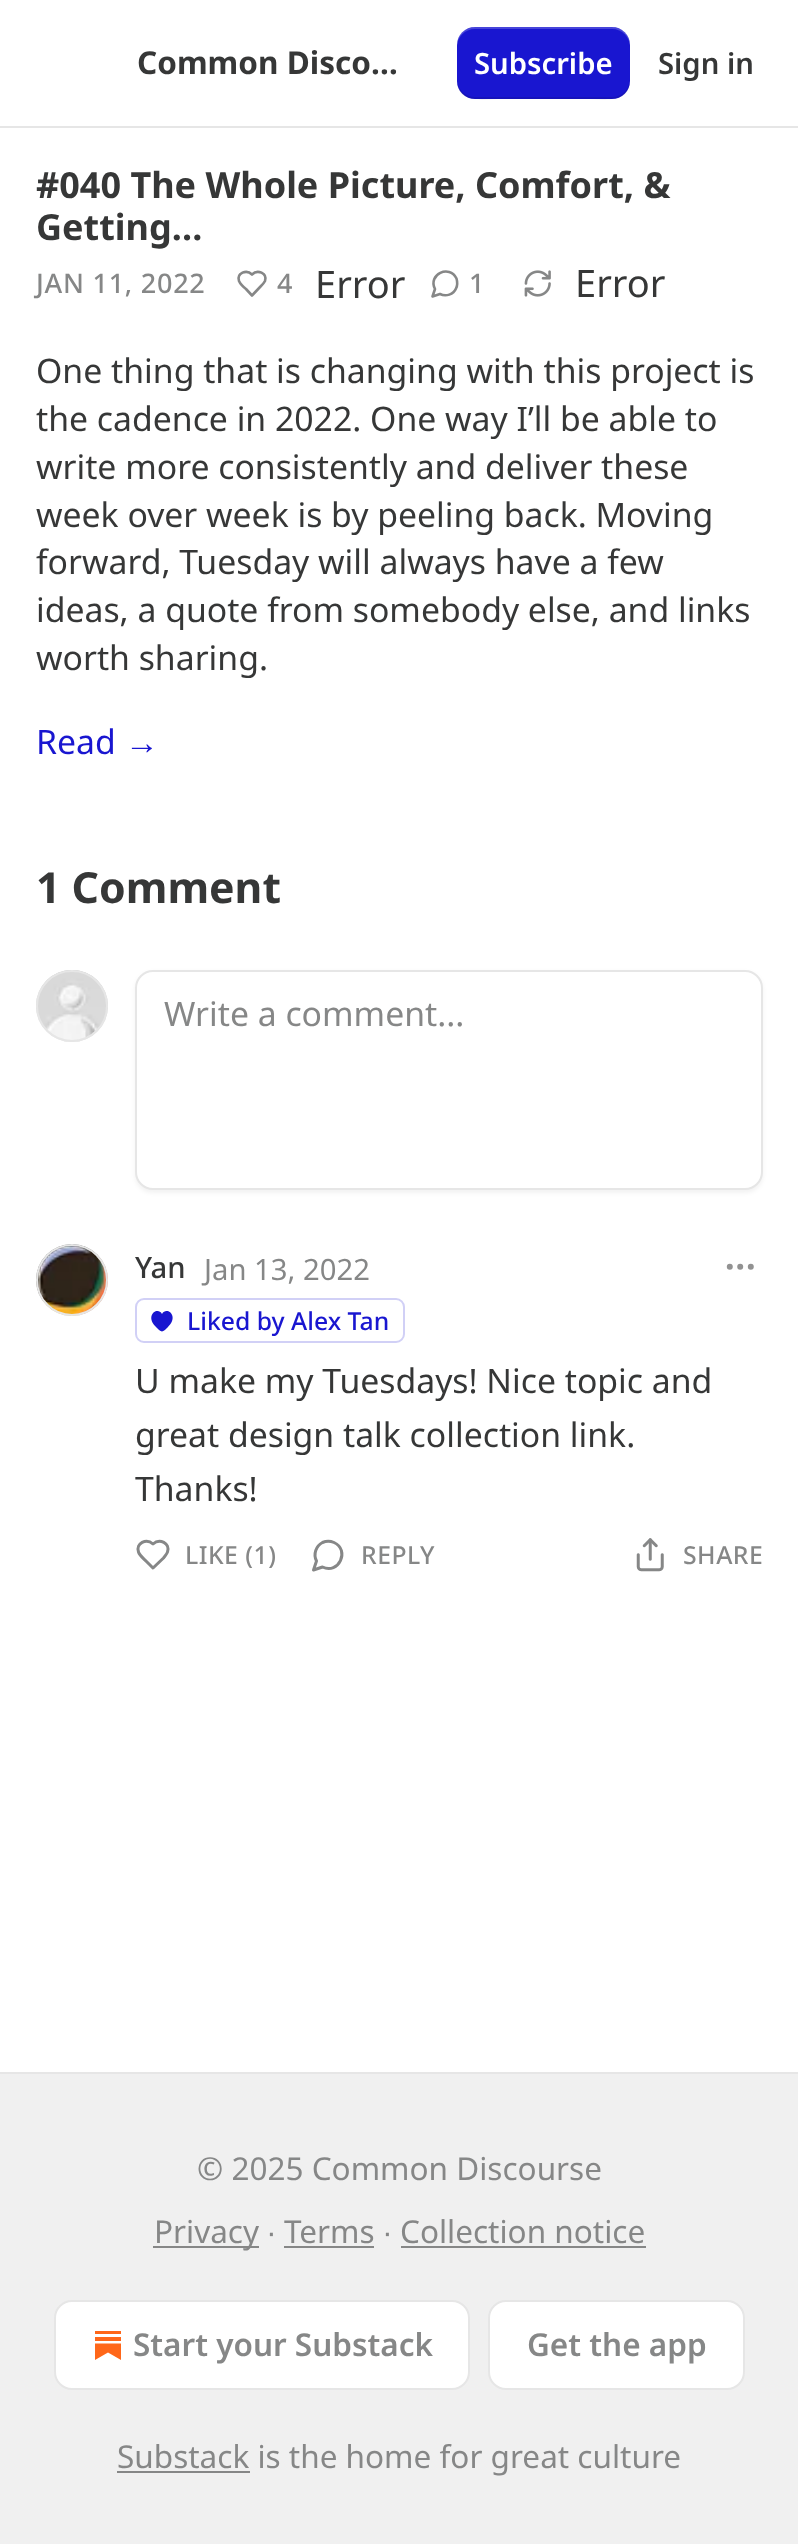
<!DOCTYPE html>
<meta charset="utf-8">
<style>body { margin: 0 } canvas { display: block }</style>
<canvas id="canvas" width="798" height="2544"></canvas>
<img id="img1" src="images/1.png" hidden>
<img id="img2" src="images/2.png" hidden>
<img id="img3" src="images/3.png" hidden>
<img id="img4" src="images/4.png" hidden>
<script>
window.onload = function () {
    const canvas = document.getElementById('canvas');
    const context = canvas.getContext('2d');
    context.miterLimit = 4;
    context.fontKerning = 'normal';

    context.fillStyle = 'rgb(255, 255, 255)';
    context.fillRect(0, 0, 798, 2544);
    context.fillStyle = 'rgb(230, 230, 230)';
    context.fillRect(0, 126, 798, 2);
    context.fillStyle = 'rgb(25, 22, 208)';
    context.beginPath();
    context.roundRect(457, 27, 173, 72, 18);
    context.fill();
    context.fillStyle = 'rgba(0, 0, 0, 0.1)';
    context.beginPath();
    context.moveTo(457, 79);
    context.bezierCurveTo(457, 104, 480, 99, 498, 99);
    context.lineTo(589, 99);
    context.bezierCurveTo(607, 99, 630, 104, 630, 79);
    context.bezierCurveTo(630, 89, 622, 97, 612, 97);
    context.lineTo(475, 97);
    context.bezierCurveTo(465, 97, 457, 89, 457, 79);
    context.closePath();
    context.fill();
    context.fillStyle = 'rgba(255, 255, 255, 0.2)';
    context.beginPath();
    context.moveTo(475, 29);
    context.lineTo(612, 29);
    context.bezierCurveTo(622, 29, 630, 37, 630, 47);
    context.bezierCurveTo(630, 22, 607, 27, 589, 27);
    context.lineTo(498, 27);
    context.bezierCurveTo(480, 27, 457, 22, 457, 47);
    context.bezierCurveTo(457, 37, 465, 29, 475, 29);
    context.closePath();
    context.fill();
    context.beginPath();
    context.moveTo(261, 286);
    context.bezierCurveTo(262.5, 284.5, 264, 283, 265, 281);
    context.bezierCurveTo(267.5, 273, 257.5, 269, 252, 274.5);
    context.bezierCurveTo(246.5, 269, 236.5, 273, 239, 281);
    context.bezierCurveTo(240.5, 284.5, 243.5, 287, 246, 289);
    context.lineTo(252, 295.5);
    context.closePath();
    context.strokeStyle = 'rgb(134, 135, 135)';
    context.lineWidth = 2.6;
    context.lineCap = 'round';
    context.lineJoin = 'round';
    context.stroke();
    context.beginPath();
    context.moveTo(440, 294);
    context.bezierCurveTo(446, 297, 453.5, 294.5, 456, 288.5);
    context.bezierCurveTo(457.5, 285.5, 457.5, 282, 456.5, 278.5);
    context.bezierCurveTo(449.5, 264, 427.5, 274.5, 435, 289);
    context.lineTo(432.5, 296.5);
    context.closePath();
    context.stroke();
    context.drawImage(document.getElementById('img1'), 524, 270, 27, 27);
    context.beginPath();
    context.arc(72, 1006, 35, 0, 2 * Math.PI);
    context.strokeStyle = 'rgb(230, 230, 230)';
    context.lineWidth = 2;
    context.stroke();
    context.drawImage(document.getElementById('img2'), 36, 970, 72, 71);
    context.beginPath();
    context.arc(72, 1006, 35, 0, 2 * Math.PI);
    context.stroke();
    context.fillStyle = 'rgba(0, 0, 0, 0.05)';
    context.filter = 'blur(2px)';
    context.beginPath();
    context.roundRect(135, 972, 628, 221, 18);
    context.fill();
    context.filter = 'none';
    context.fillStyle = 'rgb(255, 255, 255)';
    context.beginPath();
    context.roundRect(136, 971, 626, 218, 17);
    context.fill();
    context.lineJoin = 'miter';
    context.stroke();
    context.beginPath();
    context.arc(72, 1280, 35, 0, 2 * Math.PI);
    context.stroke();
    context.drawImage(document.getElementById('img3'), 36, 1244, 72, 72);
    context.beginPath();
    context.arc(72, 1280, 35, 0, 2 * Math.PI);
    context.stroke();
    context.beginPath();
    context.roundRect(136, 1299, 268, 43, 8);
    context.strokeStyle = 'rgb(209, 208, 246)';
    context.stroke();
    context.fillStyle = 'rgb(25, 22, 208)';
    context.beginPath();
    context.moveTo(162, 1331.5);
    context.bezierCurveTo(160.5, 1331.5, 157.5, 1328.5, 156.5, 1327.5);
    context.bezierCurveTo(144, 1316, 157.5, 1306, 162, 1314);
    context.bezierCurveTo(166.5, 1306, 180, 1316, 167.5, 1327.5);
    context.bezierCurveTo(166.5, 1328.5, 163.5, 1331.5, 162, 1331.5);
    context.closePath();
    context.fill();
    context.beginPath();
    context.arc(740.2, 1266.8, 1.5, 0, 2 * Math.PI);
    context.strokeStyle = 'rgb(146, 146, 146)';
    context.lineWidth = 3;
    context.stroke();
    context.beginPath();
    context.arc(750.8, 1266.8, 1.5, 0, 2 * Math.PI);
    context.stroke();
    context.beginPath();
    context.arc(729.8, 1266.8, 1.5, 0, 2 * Math.PI);
    context.stroke();
    context.beginPath();
    context.moveTo(163.5, 1558);
    context.bezierCurveTo(165, 1556, 167, 1554, 167.5, 1552);
    context.bezierCurveTo(170.5, 1543, 159.5, 1538, 153, 1544);
    context.bezierCurveTo(146.5, 1538, 135.5, 1543, 138.5, 1552);
    context.bezierCurveTo(139.5, 1555.5, 143.5, 1558.5, 146, 1561);
    context.lineTo(153, 1568);
    context.closePath();
    context.strokeStyle = 'rgb(134, 135, 135)';
    context.lineJoin = 'round';
    context.stroke();
    context.beginPath();
    context.moveTo(322.5, 1567);
    context.bezierCurveTo(338.5, 1575, 350.5, 1550, 334, 1542.5);
    context.bezierCurveTo(330.5, 1541, 326, 1541, 322.5, 1542.5);
    context.bezierCurveTo(316, 1546, 313, 1554, 316.5, 1561);
    context.lineTo(313.5, 1570);
    context.closePath();
    context.stroke();
    context.drawImage(document.getElementById('img4'), 636, 1538, 28, 34);
    context.fillStyle = 'rgb(240, 240, 240)';
    context.fillRect(0, 2074, 798, 470);
    context.fillStyle = 'rgb(230, 230, 230)';
    context.fillRect(0, 2072, 798, 2);
    context.fillStyle = 'rgb(134, 135, 135)';
    context.fillRect(153, 2246, 106, 2);
    context.fillRect(284, 2246, 90, 2);
    context.fillRect(401, 2246, 245, 2);
    context.fillStyle = 'rgb(255, 255, 255)';
    context.beginPath();
    context.roundRect(55, 2301, 414, 88, 17);
    context.fill();
    context.strokeStyle = 'rgb(230, 230, 230)';
    context.lineWidth = 2;
    context.lineJoin = 'miter';
    context.stroke();
    context.fillStyle = 'rgb(255, 103, 25)';
    context.fillRect(95, 2337, 26, 4);
    context.beginPath();
    context.moveTo(95, 2343.5);
    context.lineTo(95, 2360);
    context.lineTo(108, 2352.5);
    context.lineTo(121, 2360);
    context.lineTo(121, 2343.5);
    context.closePath();
    context.fill();
    context.fillRect(95, 2331, 26, 3);
    context.fillStyle = 'rgb(255, 255, 255)';
    context.beginPath();
    context.roundRect(489, 2301, 255, 88, 17);
    context.fill();
    context.stroke();
    context.fillStyle = 'rgb(134, 135, 135)';
    context.fillRect(117, 2471, 133, 2);
    context.font = 'bold 31.5px Noto Sans';
    context.fillStyle = 'rgb(54, 55, 55)';
    context.fillText('Common Disco…', 137, 74);
    context.font = '600 29.25px Noto Sans';
    context.fillStyle = 'rgb(255, 255, 255)';
    context.fillText('Subscribe', 474, 74);
    context.fillStyle = 'rgb(54, 55, 55)';
    context.fillText('Sign in', 658, 74);
    context.font = 'bold 36px Noto Sans';
    context.fillText('#040 The Whole Picture, Comfort, &', 36, 198);
    context.fillText('Getting…', 36, 240);
    context.letterSpacing = '0.75px';
    context.font = '500 27px Noto Sans';
    context.fillStyle = 'rgb(134, 135, 135)';
    context.fillText('JAN 11, 2022', 36, 293);
    context.fillText('4', 277, 293);
    context.letterSpacing = '0px';
    context.font = '38px Noto Sans';
    context.fillStyle = 'rgb(54, 55, 55)';
    context.fillText('Error', 315, 298);
    context.letterSpacing = '0.75px';
    context.font = '500 27px Noto Sans';
    context.fillStyle = 'rgb(134, 135, 135)';
    context.fillText('1', 469, 293);
    context.letterSpacing = '0px';
    context.font = '38px Noto Sans';
    context.fillStyle = 'rgb(54, 55, 55)';
    context.fillText('Error', 575, 297);
    context.font = '33.75px Noto Sans';
    context.fillText('One thing that is changing with this project is', 36, 383);
    context.fillText('the cadence in 2022. One way I’ll be able to', 36, 431);
    context.fillText('write more consistently and deliver these', 36, 479);
    context.fillText('week over week is by peeling back. Moving', 36, 527);
    context.fillText('forward, Tuesday will always have a few', 36, 574);
    context.fillText('ideas, a quote from somebody else, and links', 36, 622);
    context.fillText('worth sharing.', 36, 670);
    context.fillStyle = 'rgb(25, 22, 208)';
    context.fillText('Read', 36, 754);
    context.font = '33.75px Liberation Sans';
    context.fillText('→', 125, 754);
    context.font = 'bold 42.75px Noto Sans';
    context.fillStyle = 'rgb(54, 55, 55)';
    context.fillText('1 Comment', 36, 903);
    context.font = '33.75px Noto Sans';
    context.fillStyle = 'rgb(134, 135, 135)';
    context.fillText('Write a comment...', 164, 1026);
    context.font = '500 29.25px Noto Sans';
    context.fillStyle = 'rgb(54, 55, 55)';
    context.fillText('Yan', 135, 1278);
    context.font = '29.25px Noto Sans';
    context.fillStyle = 'rgb(134, 135, 135)';
    context.fillText('Jan 13, 2022', 204, 1280);
    context.font = '500 24.75px Noto Sans';
    context.fillStyle = 'rgb(25, 22, 208)';
    context.fillText('Liked by Alex Tan', 187, 1330);
    context.font = '33.75px Noto Sans';
    context.fillStyle = 'rgb(54, 55, 55)';
    context.fillText('U make my Tuesdays! Nice topic and', 135, 1393);
    context.fillText('great design talk collection link.', 135, 1447);
    context.fillText('Thanks!', 135, 1501);
    context.letterSpacing = '0.5px';
    context.font = '500 24.75px Noto Sans';
    context.fillStyle = 'rgb(134, 135, 135)';
    context.fillText('LIKE (1)', 185, 1564);
    context.fillText('REPLY', 361, 1564);
    context.fillText('SHARE', 683, 1564);
    context.letterSpacing = '0px';
    context.font = '31.5px Noto Sans';
    context.fillText('© 2025 Common Discourse', 197, 2180);
    context.fillText('Privacy', 154, 2243);
    context.font = '31.5px Liberation Sans';
    context.fillText('∙', 267, 2243);
    context.font = '31.5px Noto Sans';
    context.fillText('Terms', 284, 2243);
    context.font = '31.5px Liberation Sans';
    context.fillText('∙', 383, 2243);
    context.font = '31.5px Noto Sans';
    context.fillText('Collection notice', 400, 2243);
    context.font = '600 31.5px Noto Sans';
    context.fillText('Start your Substack', 133, 2356);
    context.fillText('Get the app', 527, 2356);
    context.font = '31.5px Noto Sans';
    context.fillText('Substack is the home for great culture', 117, 2468);
};
</script>
